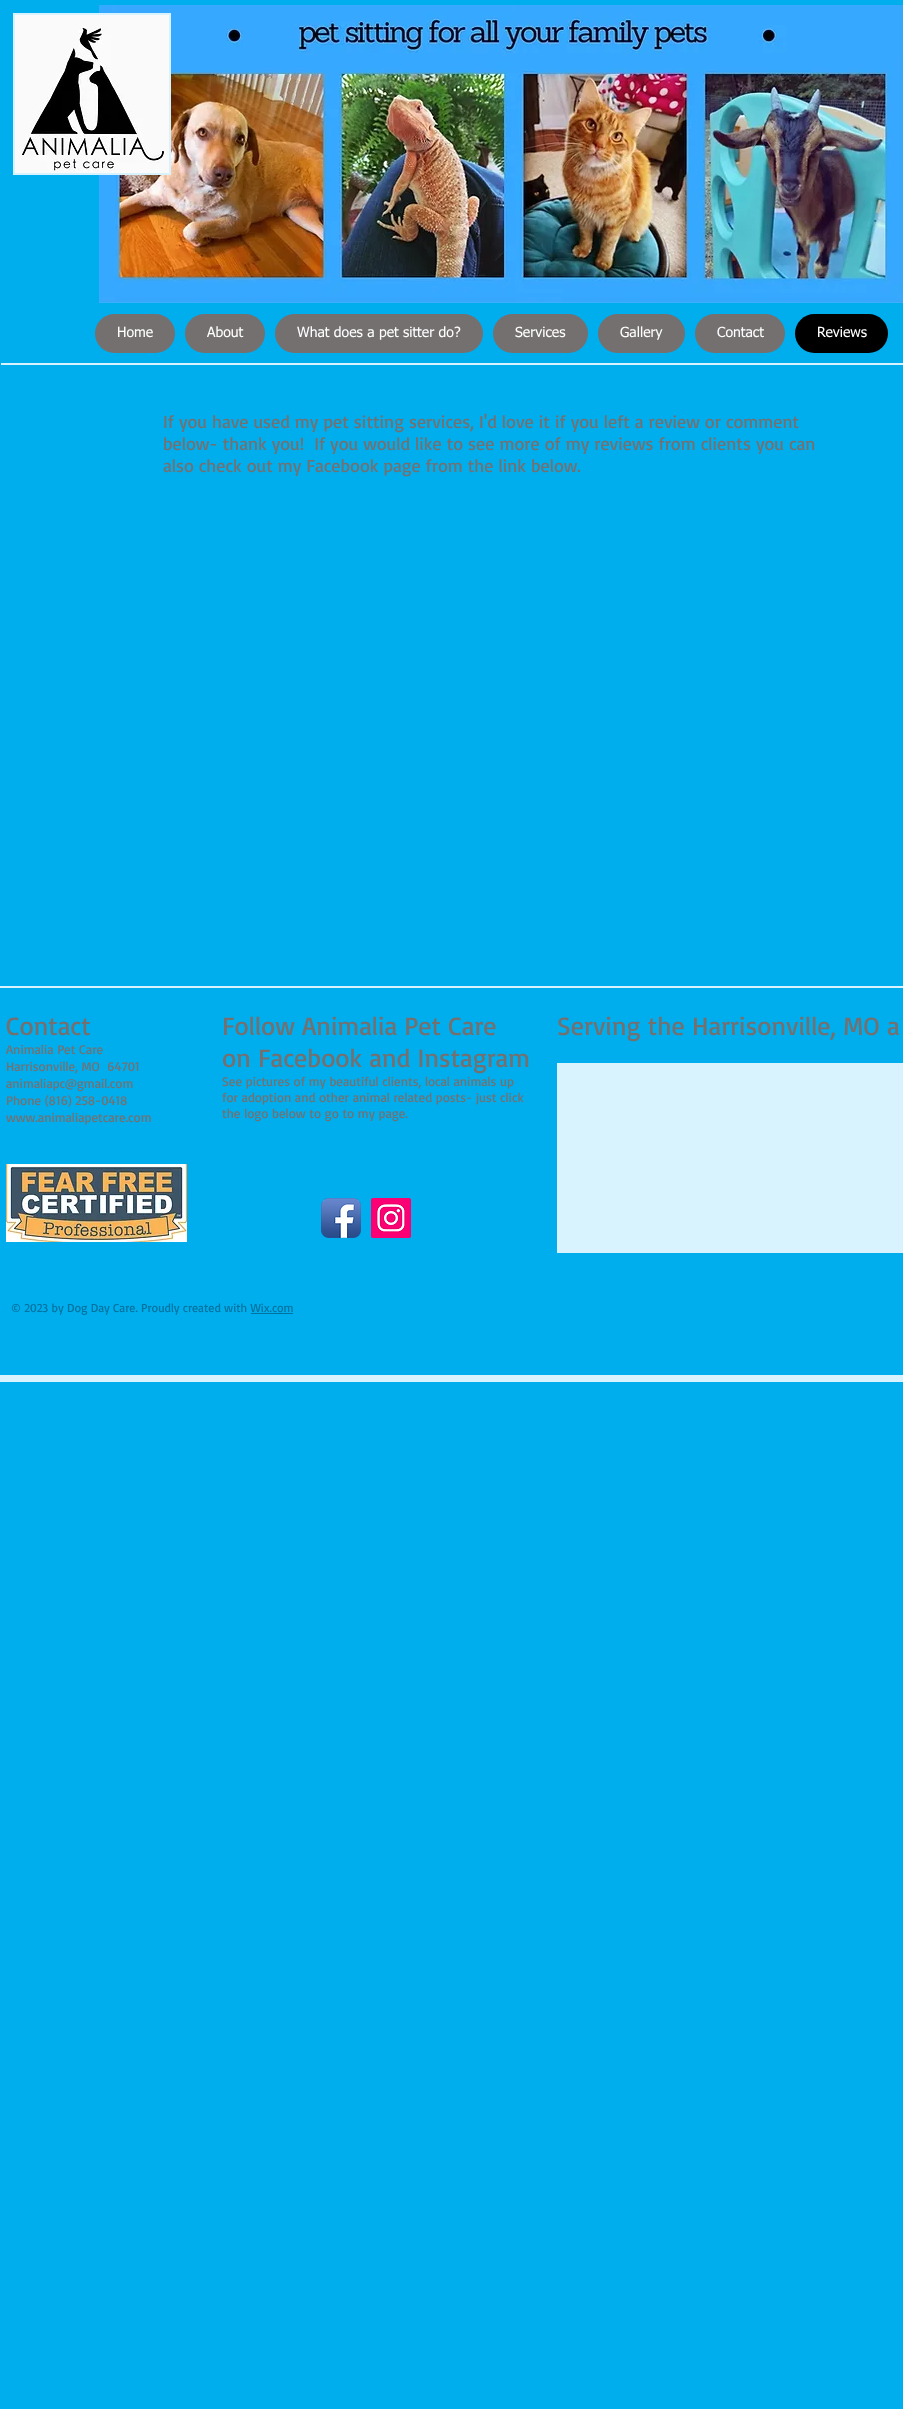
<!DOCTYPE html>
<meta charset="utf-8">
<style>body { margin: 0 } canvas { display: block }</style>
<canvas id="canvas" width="903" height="2409"></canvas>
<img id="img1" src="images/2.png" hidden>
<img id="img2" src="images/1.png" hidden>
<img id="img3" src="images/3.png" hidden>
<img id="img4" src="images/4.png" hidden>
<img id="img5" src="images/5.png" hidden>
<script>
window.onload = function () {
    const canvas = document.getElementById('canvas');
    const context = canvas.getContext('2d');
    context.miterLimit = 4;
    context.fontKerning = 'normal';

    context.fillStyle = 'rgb(0, 173, 237)';
    context.fillRect(0, 0, 903, 2409);
    context.drawImage(document.getElementById('img1'), 99, 5, 804, 298);
    context.fillStyle = 'rgb(216, 243, 253)';
    context.fillRect(13, 13, 158, 162);
    context.drawImage(document.getElementById('img2'), 15, 15, 154, 158);
    context.fillStyle = 'rgb(117, 112, 112)';
    context.beginPath();
    context.roundRect(95, 314, 80, 39, 19.5);
    context.fill();
    context.beginPath();
    context.roundRect(185, 314, 80, 39, 19.5);
    context.fill();
    context.beginPath();
    context.roundRect(275, 314, 208, 39, 19.5);
    context.fill();
    context.beginPath();
    context.roundRect(493, 314, 95, 39, 19.5);
    context.fill();
    context.beginPath();
    context.roundRect(598, 314, 87, 39, 19.5);
    context.fill();
    context.beginPath();
    context.roundRect(695, 314, 90, 39, 19.5);
    context.fill();
    context.fillStyle = 'rgb(0, 0, 0)';
    context.beginPath();
    context.roundRect(795, 314, 93, 39, 19.5);
    context.fill();
    context.fillStyle = 'rgb(216, 243, 253)';
    context.fillRect(1, 363, 902, 2);
    context.fillRect(0, 986, 903, 2);
    context.fillRect(0, 1375, 903, 7);
    context.drawImage(document.getElementById('img3'), 6, 1164, 181, 78);
    context.drawImage(document.getElementById('img4'), 321, 1198, 40, 40);
    context.drawImage(document.getElementById('img5'), 371, 1198, 40, 40);
    context.fillRect(557, 1063, 346, 190);
    context.fillStyle = 'rgb(0, 115, 158)';
    context.fillRect(251, 1313, 42, 1);
    context.font = '14px tahoma';
    context.fillStyle = 'rgb(255, 255, 255)';
    context.fillText('Home', 117, 337);
    context.fillText('About', 207, 337);
    context.fillText('What does a pet sitter do?', 297, 337);
    context.fillText('Services', 515, 337);
    context.fillText('Gallery', 620, 337);
    context.fillText('Contact', 717, 337);
    context.fillText('Reviews', 817, 337);
    context.font = '18px Basic';
    context.fillStyle = 'rgb(117, 112, 112)';
    context.fillText('If you have used my pet sitting services, I\'d love it if you left a review or comment', 163, 428);
    context.fillText('below- thank you!  If you would like to see more of my reviews from clients you can', 163, 450);
    context.fillText('also check out my Facebook page from the link below.', 163, 472);
    context.font = '26px Basic';
    context.fillText('Contact', 6, 1035);
    context.font = '13px Basic';
    context.fillText('Animalia Pet Care', 6, 1054);
    context.fillText('Harrisonville, MO  64701', 6, 1071);
    context.fillText('animaliapc@gmail.com', 6, 1088);
    context.fillText('Phone (816) 258-0418', 6, 1105);
    context.fillText('www.animaliapetcare.com', 6, 1122);
    context.font = '26px Basic';
    context.fillText('Follow Animalia Pet Care', 222, 1035);
    context.fillText('on Facebook and Instagram', 222, 1067);
    context.font = '13px Basic';
    context.fillText('See pictures of my beautiful clients, local animals up', 222, 1086);
    context.fillText('for adoption and other animal related posts- just click', 222, 1102);
    context.fillText('the logo below to go to my page.', 222, 1118);
    context.font = '26px Basic';
    context.fillText('Serving the Harrisonville, MO a', 557, 1035);
    context.font = '12px Basic';
    context.fillStyle = 'rgb(0, 115, 158)';
    context.fillText('© 2023 by Dog Day Care. Proudly created with Wix.com', 11, 1312);
};
</script>
